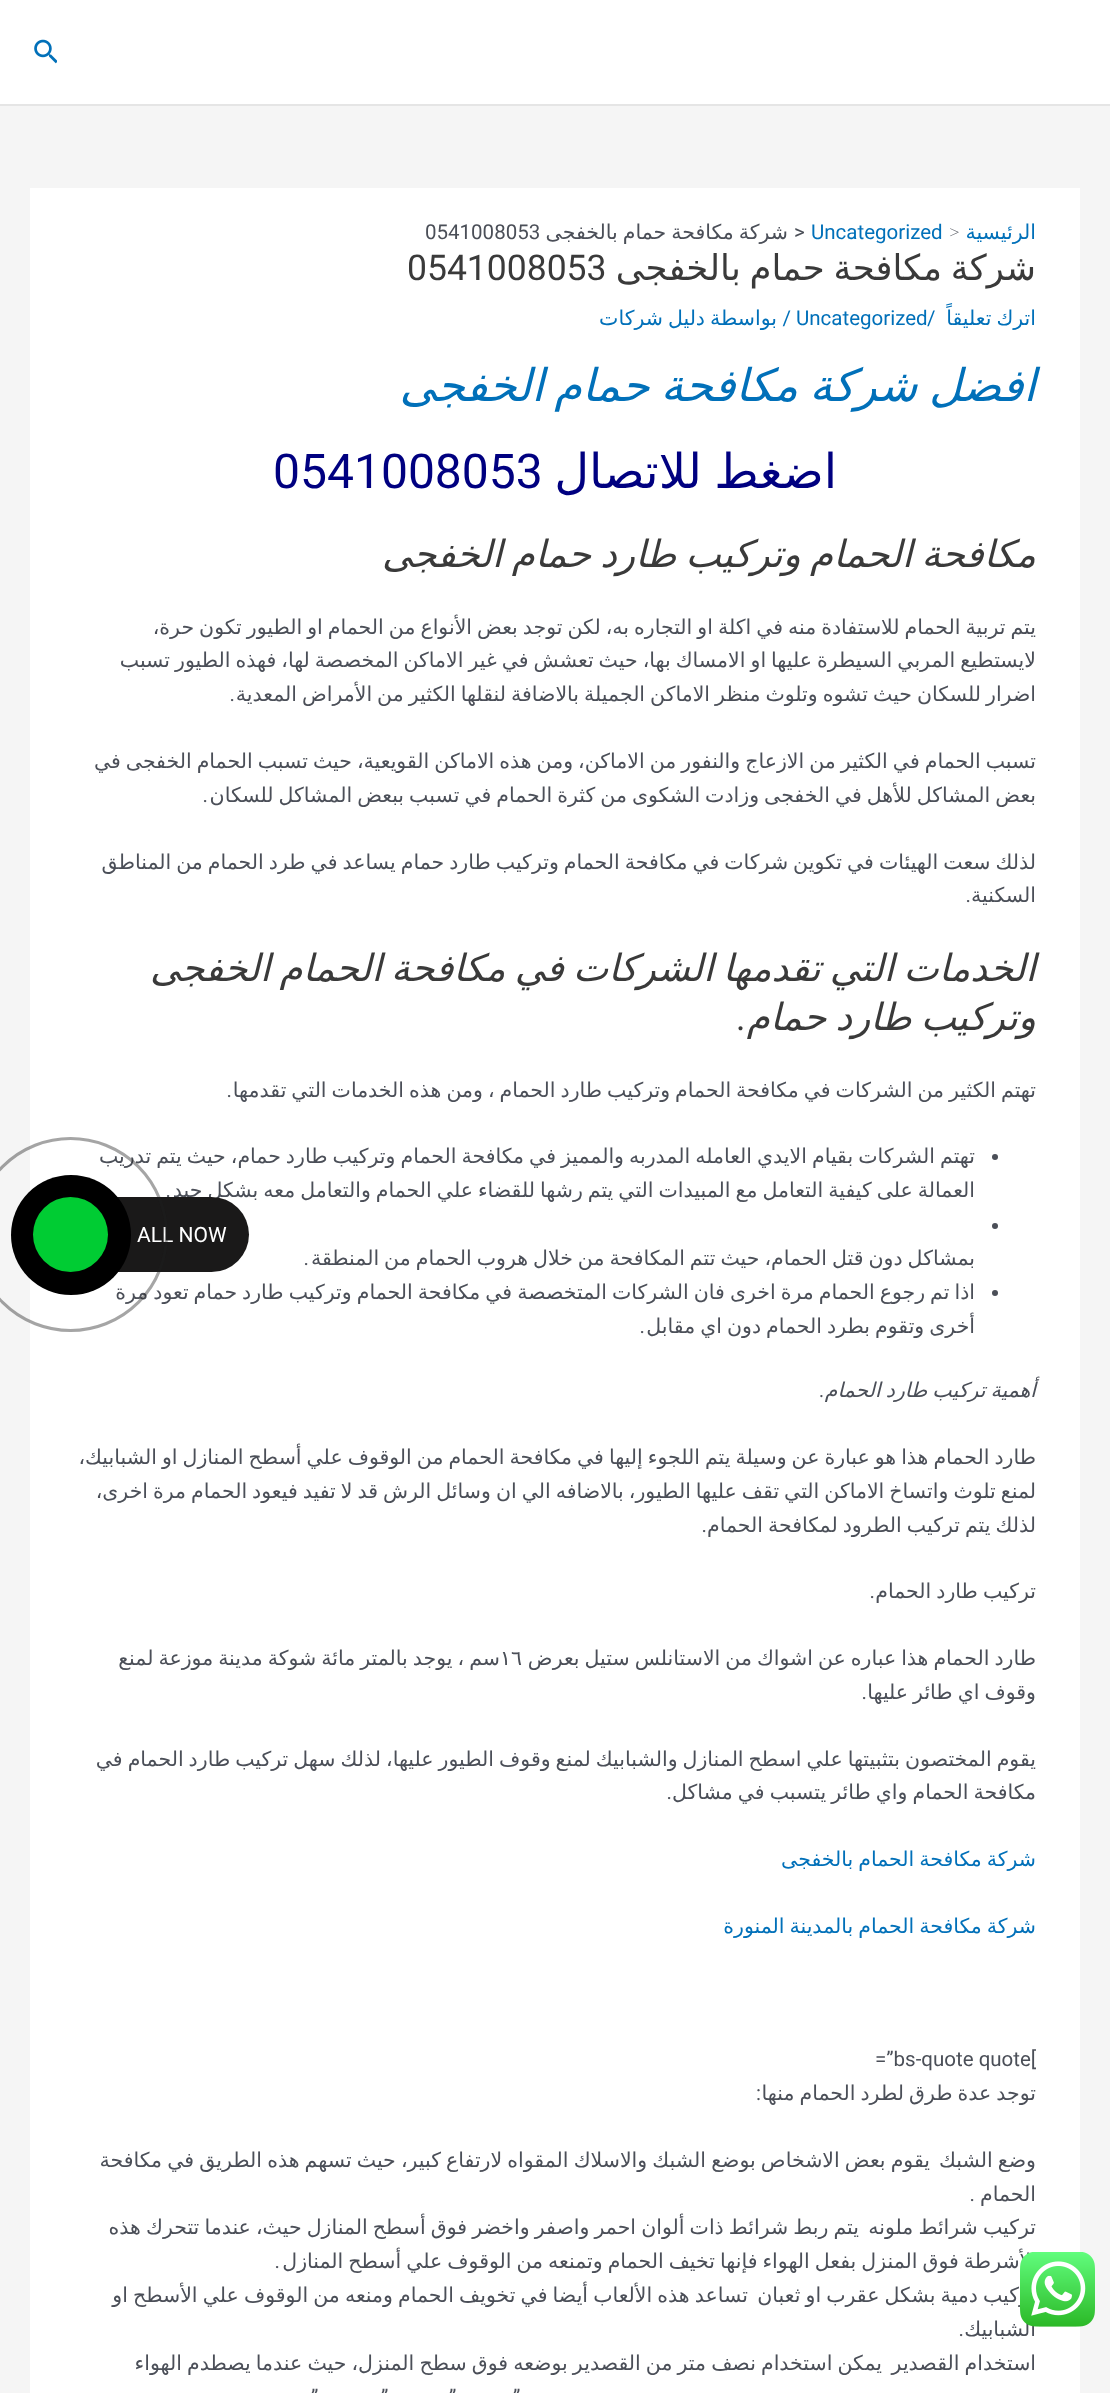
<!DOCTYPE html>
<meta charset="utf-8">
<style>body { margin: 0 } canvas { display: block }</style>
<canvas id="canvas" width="1110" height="2393"></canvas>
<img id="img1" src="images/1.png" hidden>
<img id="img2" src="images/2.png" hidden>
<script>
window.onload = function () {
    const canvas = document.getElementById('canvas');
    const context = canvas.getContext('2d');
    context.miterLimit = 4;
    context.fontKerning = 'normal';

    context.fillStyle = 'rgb(245, 245, 245)';
    context.fillRect(0, 0, 1110, 2393);
    context.fillStyle = 'rgb(255, 255, 255)';
    context.fillRect(0, 0, 1110, 104);
    context.fillStyle = 'rgb(229, 229, 229)';
    context.fillRect(0, 104, 1110, 2);
    context.drawImage(document.getElementById('img1'), 34, 39, 23, 25);
    context.fillStyle = 'rgb(255, 255, 255)';
    context.fillRect(30, 188, 1050, 2205);
    context.fillStyle = 'rgb(75, 79, 88)';
    context.beginPath();
    context.arc(995, 1157, 3, 0, 2 * Math.PI);
    context.fill();
    context.beginPath();
    context.arc(995, 1226, 3, 0, 2 * Math.PI);
    context.fill();
    context.beginPath();
    context.arc(995, 1293, 3, 0, 2 * Math.PI);
    context.fill();
    context.direction = 'rtl';
    context.font = '20.5px DejaVu Sans';
    context.fillStyle = 'rgb(1, 112, 185)';
    context.fillText('الرئيسية', 1036, 239);
    context.direction = 'ltr';
    context.font = '100 20.5px Roboto';
    context.fillStyle = 'rgb(75, 79, 88)';
    context.fillText('>', 949, 239);
    context.font = '20.5px Roboto';
    context.fillStyle = 'rgb(1, 112, 185)';
    context.fillText('Uncategorized', 811, 239);
    context.fillStyle = 'rgb(75, 79, 88)';
    context.fillText('>', 794, 239);
    context.wordSpacing = '-1.5px';
    context.direction = 'rtl';
    context.font = '20.5px DejaVu Sans';
    context.fillText('شركة مكافحة حمام بالخفجى', 788, 239);
    context.wordSpacing = '0px';
    context.direction = 'ltr';
    context.font = '20.5px Roboto';
    context.fillText('0541008053', 425, 239);
    context.wordSpacing = '-2.5px';
    context.direction = 'rtl';
    context.font = '35.5px DejaVu Sans';
    context.fillStyle = 'rgb(58, 58, 58)';
    context.fillText('شركة مكافحة حمام بالخفجى', 1036, 280);
    context.wordSpacing = '0px';
    context.direction = 'ltr';
    context.font = '35.5px Roboto';
    context.fillText('0541008053', 407, 280);
    context.wordSpacing = '-1.5px';
    context.direction = 'rtl';
    context.font = '20.5px DejaVu Sans';
    context.fillStyle = 'rgb(1, 112, 185)';
    context.fillText('اترك تعليقاً', 1036, 325);
    context.wordSpacing = '0px';
    context.direction = 'ltr';
    context.font = '20.5px Roboto';
    context.fillText('/', 927, 325);
    context.fillText('Uncategorized', 796, 325);
    context.direction = 'rtl';
    context.fillText('/', 791, 325);
    context.font = '20.5px DejaVu Sans';
    context.fillText('بواسطة', 777, 325);
    context.wordSpacing = '-1.5px';
    context.fillText('دليل شركات', 705, 325);
    context.wordSpacing = '-3px';
    context.font = 'italic 45px DejaVu Sans';
    context.fillText('افضل شركة مكافحة حمام', 1036, 401);
    context.wordSpacing = '0px';
    context.fillText('الخفجى', 544, 401);
    context.wordSpacing = '-3px';
    context.font = '48px DejaVu Sans';
    context.fillStyle = 'rgb(0, 0, 128)';
    context.fillText('اضغط للاتصال', 837, 488);
    context.wordSpacing = '0px';
    context.direction = 'ltr';
    context.font = '48px Roboto';
    context.fillText('0541008053', 273, 488);
    context.wordSpacing = '-2.75px';
    context.direction = 'rtl';
    context.font = 'italic 37.5px DejaVu Sans';
    context.fillStyle = 'rgb(58, 58, 58)';
    context.fillText('مكافحة الحمام وتركيب طارد حمام الخفجى', 1036, 567);
    context.wordSpacing = '-1.5px';
    context.font = '20.5px DejaVu Sans';
    context.fillStyle = 'rgb(75, 79, 88)';
    context.fillText('يتم تربية الحمام للاستفادة منه في اكلة او التجاره به، لكن توجد بعض الأنواع من الحمام او الطيور تكون حرة،', 1036, 634);
    context.fillText('لايستطيع المربي السيطرة عليها او الامساك بها، حيث تعشش في غير الاماكن المخصصة لها، فهذه الطيور تسبب', 1036, 667);
    context.fillText('اضرار للسكان حيث تشوه وتلوث منظر الاماكن الجميلة بالاضافة لنقلها الكثير من الأمراض المعدية', 1036, 701);
    context.wordSpacing = '0px';
    context.font = '20.5px Roboto';
    context.fillText('.', 235, 701);
    context.wordSpacing = '-1.5px';
    context.font = '20.5px DejaVu Sans';
    context.fillText('تسبب الحمام في الكثير من الازعاج والنفور من الاماكن، ومن هذه الاماكن القويعية، حيث تسبب الحمام الخفجى في', 1036, 768);
    context.fillText('بعض المشاكل للأهل في الخفجى وزادت الشكوى من كثرة الحمام في تسبب ببعض المشاكل للسكان', 1036, 802);
    context.wordSpacing = '0px';
    context.font = '20.5px Roboto';
    context.fillText('.', 208, 802);
    context.wordSpacing = '-1.5px';
    context.font = '20.5px DejaVu Sans';
    context.fillText('لذلك سعت الهيئات في تكوين شركات في مكافحة الحمام وتركيب طارد حمام يساعد في طرد الحمام من المناطق', 1036, 869);
    context.wordSpacing = '0px';
    context.fillText('السكنية', 1036, 902);
    context.font = '20.5px Roboto';
    context.fillText('.', 971, 902);
    context.wordSpacing = '-2.75px';
    context.font = 'italic 37.5px DejaVu Sans';
    context.fillStyle = 'rgb(58, 58, 58)';
    context.fillText('الخدمات التي تقدمها الشركات في مكافحة الحمام الخفجى', 1036, 981);
    context.fillText('وتركيب طارد حمام', 1036, 1030);
    context.wordSpacing = '0px';
    context.font = 'italic 37.5px Roboto';
    context.fillText('.', 747, 1030);
    context.wordSpacing = '-1.5px';
    context.font = '20.5px DejaVu Sans';
    context.fillStyle = 'rgb(75, 79, 88)';
    context.fillText('تهتم الكثير من الشركات في مكافحة الحمام وتركيب طارد الحمام ، ومن هذه الخدمات التي تقدمها', 1036, 1097);
    context.wordSpacing = '0px';
    context.font = '20.5px Roboto';
    context.fillText('.', 232, 1097);
    context.wordSpacing = '-1.5px';
    context.font = '20.5px DejaVu Sans';
    context.fillText('تهتم الشركات بقيام الايدي العامله المدربه والمميز في مكافحة الحمام وتركيب طارد حمام، حيث يتم تدريب', 975, 1163);
    context.fillText('العمالة على كيفية التعامل مع المبيدات التي يتم رشها للقضاء علي الحمام والتعامل معه بشكل جيد', 975, 1197);
    context.wordSpacing = '0px';
    context.font = '20.5px Roboto';
    context.fillText('.', 171, 1197);
    context.wordSpacing = '-1.5px';
    context.font = '20.5px DejaVu Sans';
    context.fillText('بمشاكل دون قتل الحمام، حيث تتم المكافحة من خلال هروب الحمام من المنطقة', 975, 1265);
    context.wordSpacing = '0px';
    context.font = '20.5px Roboto';
    context.fillText('.', 309, 1265);
    context.wordSpacing = '-1.5px';
    context.font = '20.5px DejaVu Sans';
    context.fillText('اذا تم رجوع الحمام مرة اخرى فان الشركات المتخصصة في مكافحة الحمام وتركيب طارد حمام تعود مرة', 975, 1299);
    context.fillText('أخرى وتقوم بطرد الحمام دون اي مقابل', 975, 1333);
    context.wordSpacing = '0px';
    context.font = '20.5px Roboto';
    context.fillText('.', 645, 1333);
    context.wordSpacing = '-1.5px';
    context.font = 'italic 20.5px DejaVu Sans';
    context.fillText('أهمية تركيب طارد الحمام', 1036, 1397);
    context.wordSpacing = '0px';
    context.font = 'italic 20.5px Roboto';
    context.fillText('.', 825, 1397);
    context.wordSpacing = '-1.5px';
    context.font = '20.5px DejaVu Sans';
    context.fillText('طارد الحمام هذا هو عبارة عن وسيلة يتم اللجوء إليها في مكافحة الحمام من الوقوف علي أسطح المنازل او الشبابيك،', 1036, 1464);
    context.fillText('لمنع تلوث واتساخ الاماكن التي تقف عليها الطيور، بالاضافه الي ان وسائل الرش قد لا تفيد فيعود الحمام مرة اخرى،', 1036, 1498);
    context.fillText('لذلك يتم تركيب الطرود لمكافحة الحمام', 1036, 1532);
    context.wordSpacing = '0px';
    context.font = '20.5px Roboto';
    context.fillText('.', 707, 1532);
    context.wordSpacing = '-1.5px';
    context.font = '20.5px DejaVu Sans';
    context.fillText('تركيب طارد الحمام', 1036, 1598);
    context.wordSpacing = '0px';
    context.font = '20.5px Roboto';
    context.fillText('.', 875, 1598);
    context.wordSpacing = '-1.5px';
    context.font = '20.5px DejaVu Sans';
    context.fillText('طارد الحمام هذا عباره عن اشواك من الاستانلس ستيل بعرض', 1036, 1665);
    context.fillText('سم ، يوجد بالمتر مائة شوكة مدينة موزعة لمنع', 500, 1665);
    context.wordSpacing = '0px';
    context.direction = 'ltr';
    context.fillText('١٦', 500, 1665);
    context.wordSpacing = '-1.5px';
    context.direction = 'rtl';
    context.fillText('وقوف اي طائر عليها', 1036, 1699);
    context.wordSpacing = '0px';
    context.font = '20.5px Roboto';
    context.fillText('.', 867, 1699);
    context.wordSpacing = '-1.5px';
    context.font = '20.5px DejaVu Sans';
    context.fillText('يقوم المختصون بتثبيتها علي اسطح المنازل والشبابيك لمنع وقوف الطيور عليها، لذلك سهل تركيب طارد الحمام في', 1036, 1766);
    context.fillText('مكافحة الحمام واي طائر يتسبب في مشاكل', 1036, 1799);
    context.wordSpacing = '0px';
    context.font = '20.5px Roboto';
    context.fillText('.', 672, 1799);
    context.wordSpacing = '-1.5px';
    context.font = '20.5px DejaVu Sans';
    context.fillStyle = 'rgb(1, 112, 185)';
    context.fillText('شركة مكافحة الحمام بالخفجى', 1036, 1866);
    context.fillText('شركة مكافحة الحمام بالمدينة المنورة', 1036, 1933);
    context.wordSpacing = '0px';
    context.direction = 'ltr';
    context.font = '20.5px Roboto';
    context.fillStyle = 'rgb(75, 79, 88)';
    context.fillText('=”bs-quote quote[', 875, 2066);
    context.wordSpacing = '-1.5px';
    context.direction = 'rtl';
    context.font = '20.5px DejaVu Sans';
    context.fillText('توجد عدة طرق لطرد الحمام منها', 1036, 2100);
    context.wordSpacing = '0px';
    context.font = '20.5px Roboto';
    context.fillText(':', 761, 2100);
    context.wordSpacing = '-1.4px';
    context.font = '20.5px DejaVu Sans';
    context.fillText('وضع الشبك', 1036, 2167);
    context.fillText('يقوم بعض الاشخاص بوضع الشبك والاسلاك المقواه لارتفاع كبير، حيث تسهم هذه الطريق في مكافحة', 930, 2167);
    context.wordSpacing = '0px';
    context.fillText('الحمام', 1036, 2201);
    context.font = '20.5px Roboto';
    context.fillText('.', 975, 2201);
    context.wordSpacing = '-1.4px';
    context.font = '20.5px DejaVu Sans';
    context.fillText('تركيب شرائط ملونه', 1036, 2234);
    context.fillText('يتم ربط شرائط ذات ألوان احمر واصفر واخضر فوق أسطح المنازل حيث، عندما تتحرك هذه', 859, 2234);
    context.wordSpacing = '-1.5px';
    context.fillText('الأشرطة فوق المنزل بفعل الهواء فإنها تخيف الحمام وتمنعه من الوقوف علي أسطح المنازل', 1037, 2268);
    context.wordSpacing = '0px';
    context.font = '20.5px Roboto';
    context.fillText('.', 280, 2268);
    context.wordSpacing = '-1.4px';
    context.font = '20.5px DejaVu Sans';
    context.fillText('تركيب دمية بشكل عقرب او ثعبان', 1036, 2302);
    context.fillText('تساعد هذه الألعاب أيضا في تخويف الحمام ومنعه من الوقوف علي الأسطح او', 748, 2302);
    context.wordSpacing = '0px';
    context.fillText('الشبابيك', 1036, 2336);
    context.font = '20.5px Roboto';
    context.fillText('.', 964, 2336);
    context.wordSpacing = '-1.4px';
    context.font = '20.5px DejaVu Sans';
    context.fillText('يمكن استخدام نصف متر من القصدير بوضعه فوق سطح المنزل، حيث عندما يصطدم الهواء', 882, 2370);
    context.fillText('استخدام القصدير', 1036, 2370);
    context.wordSpacing = '0px';
    context.direction = 'ltr';
    context.font = '20.5px Roboto';
    context.fillText('”', 513, 2404);
    context.fillText('”', 449, 2404);
    context.fillText('”', 381, 2404);
    context.fillText('”', 311, 2404);
    context.fillStyle = 'rgb(26, 25, 25)';
    context.beginPath();
    context.roundRect(33, 1197, 216, 75, 37.5);
    context.fill();
    context.font = '21px Roboto';
    context.fillStyle = 'rgb(255, 255, 255)';
    context.fillText('ALL NOW', 137, 1242);
    context.beginPath();
    context.arc(70.5, 1234.5, 96, 0, 2 * Math.PI);
    context.strokeStyle = 'rgba(30, 30, 30, 0.4)';
    context.lineWidth = 3;
    context.stroke();
    context.fillStyle = 'rgb(0, 0, 0)';
    context.beginPath();
    context.arc(71, 1235, 60, 0, 2 * Math.PI);
    context.fill();
    context.fillStyle = 'rgb(0, 204, 51)';
    context.beginPath();
    context.arc(70.5, 1234.5, 37.5, 0, 2 * Math.PI);
    context.fill();
    context.drawImage(document.getElementById('img2'), 1020, 2252, 75, 75);
};
</script>
